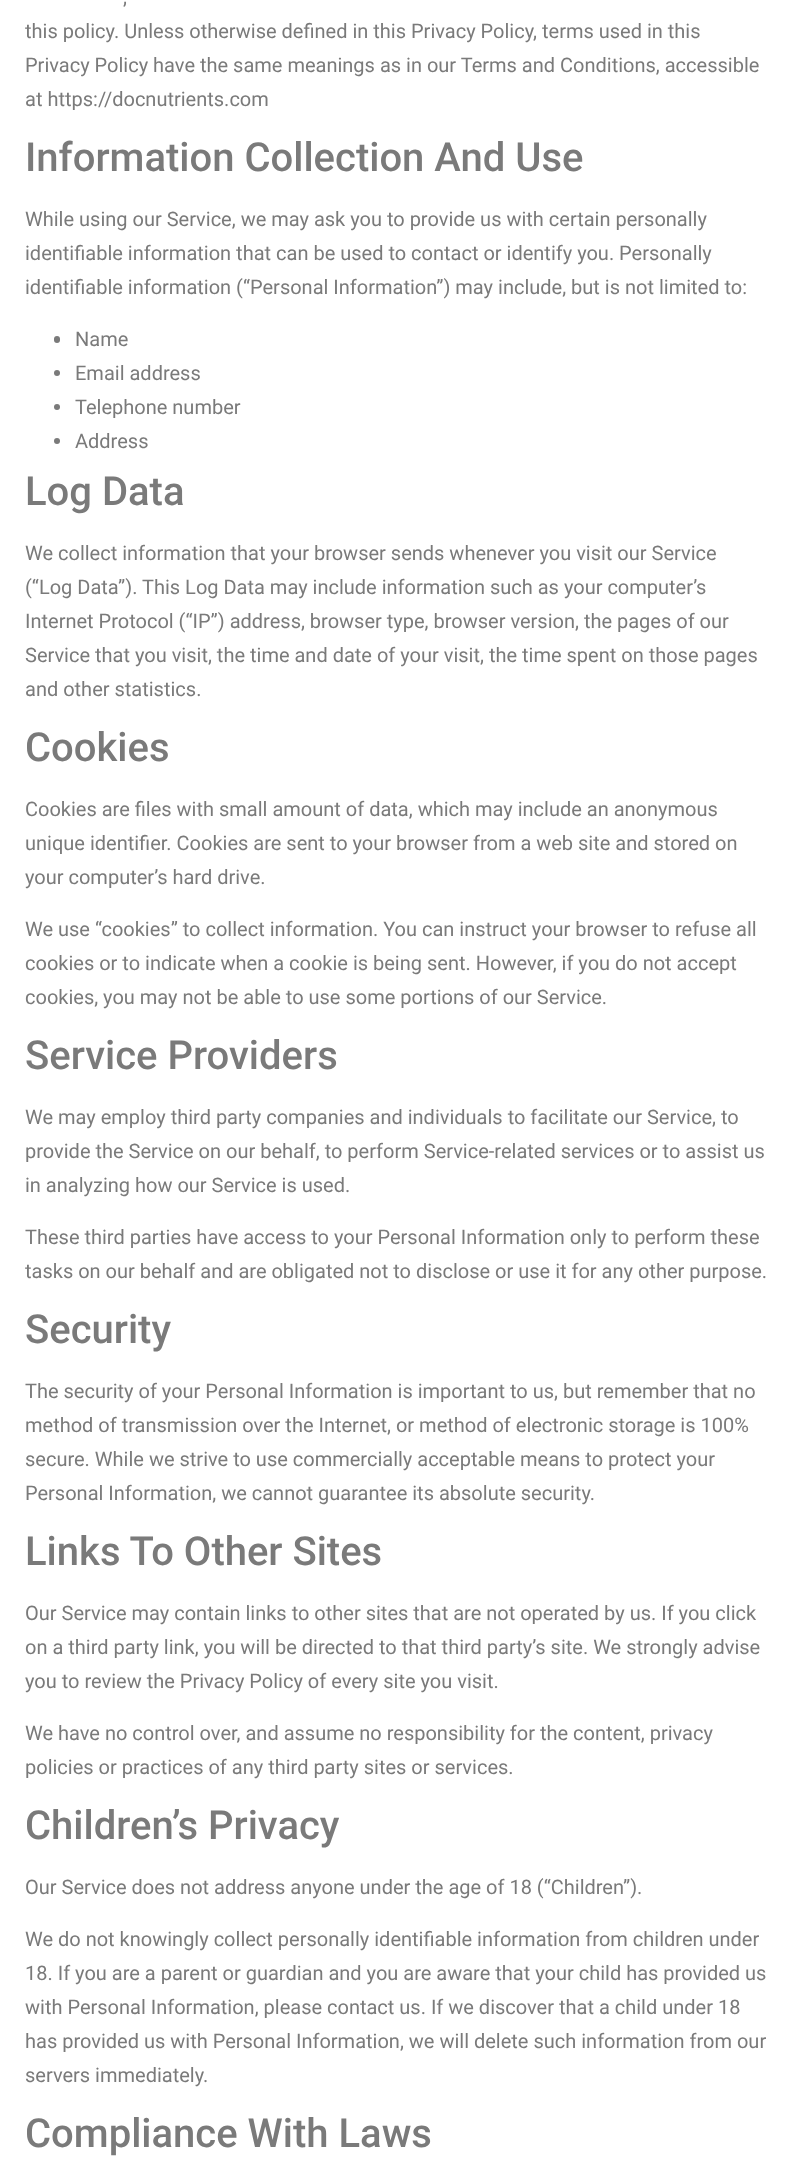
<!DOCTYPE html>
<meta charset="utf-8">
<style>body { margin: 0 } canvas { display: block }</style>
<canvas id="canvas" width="792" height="2165"></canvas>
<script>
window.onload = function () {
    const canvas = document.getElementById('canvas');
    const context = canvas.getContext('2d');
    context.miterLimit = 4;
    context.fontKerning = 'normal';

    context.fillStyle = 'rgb(255, 255, 255)';
    context.fillRect(0, 0, 792, 2165);
    context.fillStyle = 'rgb(122, 122, 122)';
    context.beginPath();
    context.roundRect(54, 336, 6, 7, 3);
    context.fill();
    context.beginPath();
    context.arc(57, 373, 3, 0, 2 * Math.PI);
    context.fill();
    context.beginPath();
    context.arc(57, 407, 3, 0, 2 * Math.PI);
    context.fill();
    context.beginPath();
    context.arc(57, 441, 3, 0, 2 * Math.PI);
    context.fill();
    context.font = '20px Roboto';
    context.fillText(',', 123, 4);
    context.fillText('this policy. Unless otherwise defined in this Privacy Policy, terms used in this', 25, 38);
    context.fillText('Privacy Policy have the same meanings as in our Terms and Conditions, accessible', 25, 72);
    context.fillText('at https://docnutrients.com', 25, 106);
    context.font = '500 40px Roboto';
    context.fillText('Information Collection And Use', 25, 171);
    context.font = '20px Roboto';
    context.fillText('While using our Service, we may ask you to provide us with certain personally', 25, 226);
    context.fillText('identifiable information that can be used to contact or identify you. Personally', 25, 260);
    context.fillText('identifiable information (“Personal Information”) may include, but is not limited to:', 25, 294);
    context.fillText('Name', 75, 346);
    context.fillText('Email address', 75, 380);
    context.fillText('Telephone number', 75, 414);
    context.fillText('Address', 75, 448);
    context.font = '500 40px Roboto';
    context.fillText('Log Data', 25, 505);
    context.font = '20px Roboto';
    context.fillText('We collect information that your browser sends whenever you visit our Service', 25, 560);
    context.fillText('(“Log Data”). This Log Data may include information such as your computer’s', 25, 594);
    context.fillText('Internet Protocol (“IP”) address, browser type, browser version, the pages of our', 25, 628);
    context.fillText('Service that you visit, the time and date of your visit, the time spent on those pages', 25, 662);
    context.fillText('and other statistics.', 25, 696);
    context.font = '500 40px Roboto';
    context.fillText('Cookies', 25, 761);
    context.font = '20px Roboto';
    context.fillText('Cookies are files with small amount of data, which may include an anonymous', 25, 816);
    context.fillText('unique identifier. Cookies are sent to your browser from a web site and stored on', 25, 850);
    context.fillText('your computer’s hard drive.', 25, 884);
    context.fillText('We use “cookies” to collect information. You can instruct your browser to refuse all', 25, 936);
    context.fillText('cookies or to indicate when a cookie is being sent. However, if you do not accept', 25, 970);
    context.fillText('cookies, you may not be able to use some portions of our Service.', 25, 1004);
    context.font = '500 40px Roboto';
    context.fillText('Service Providers', 25, 1069);
    context.font = '20px Roboto';
    context.fillText('We may employ third party companies and individuals to facilitate our Service, to', 25, 1124);
    context.fillText('provide the Service on our behalf, to perform Service-related services or to assist us', 25, 1158);
    context.fillText('in analyzing how our Service is used.', 25, 1192);
    context.fillText('These third parties have access to your Personal Information only to perform these', 25, 1244);
    context.fillText('tasks on our behalf and are obligated not to disclose or use it for any other purpose.', 25, 1278);
    context.font = '500 40px Roboto';
    context.fillText('Security', 25, 1343);
    context.font = '20px Roboto';
    context.fillText('The security of your Personal Information is important to us, but remember that no', 25, 1398);
    context.fillText('method of transmission over the Internet, or method of electronic storage is 100%', 25, 1432);
    context.fillText('secure. While we strive to use commercially acceptable means to protect your', 25, 1466);
    context.fillText('Personal Information, we cannot guarantee its absolute security.', 25, 1500);
    context.font = '500 40px Roboto';
    context.fillText('Links To Other Sites', 25, 1565);
    context.font = '20px Roboto';
    context.fillText('Our Service may contain links to other sites that are not operated by us. If you click', 25, 1620);
    context.fillText('on a third party link, you will be directed to that third party’s site. We strongly advise', 25, 1654);
    context.fillText('you to review the Privacy Policy of every site you visit.', 25, 1688);
    context.fillText('We have no control over, and assume no responsibility for the content, privacy', 25, 1740);
    context.fillText('policies or practices of any third party sites or services.', 25, 1774);
    context.font = '500 40px Roboto';
    context.fillText('Children’s Privacy', 25, 1839);
    context.font = '20px Roboto';
    context.fillText('Our Service does not address anyone under the age of 18 (“Children”).', 25, 1894);
    context.fillText('We do not knowingly collect personally identifiable information from children under', 25, 1946);
    context.fillText('18. If you are a parent or guardian and you are aware that your child has provided us', 25, 1980);
    context.fillText('with Personal Information, please contact us. If we discover that a child under 18', 25, 2014);
    context.fillText('has provided us with Personal Information, we will delete such information from our', 25, 2048);
    context.fillText('servers immediately.', 25, 2082);
    context.font = '500 40px Roboto';
    context.fillText('Compliance With Laws', 25, 2147);
};
</script>
